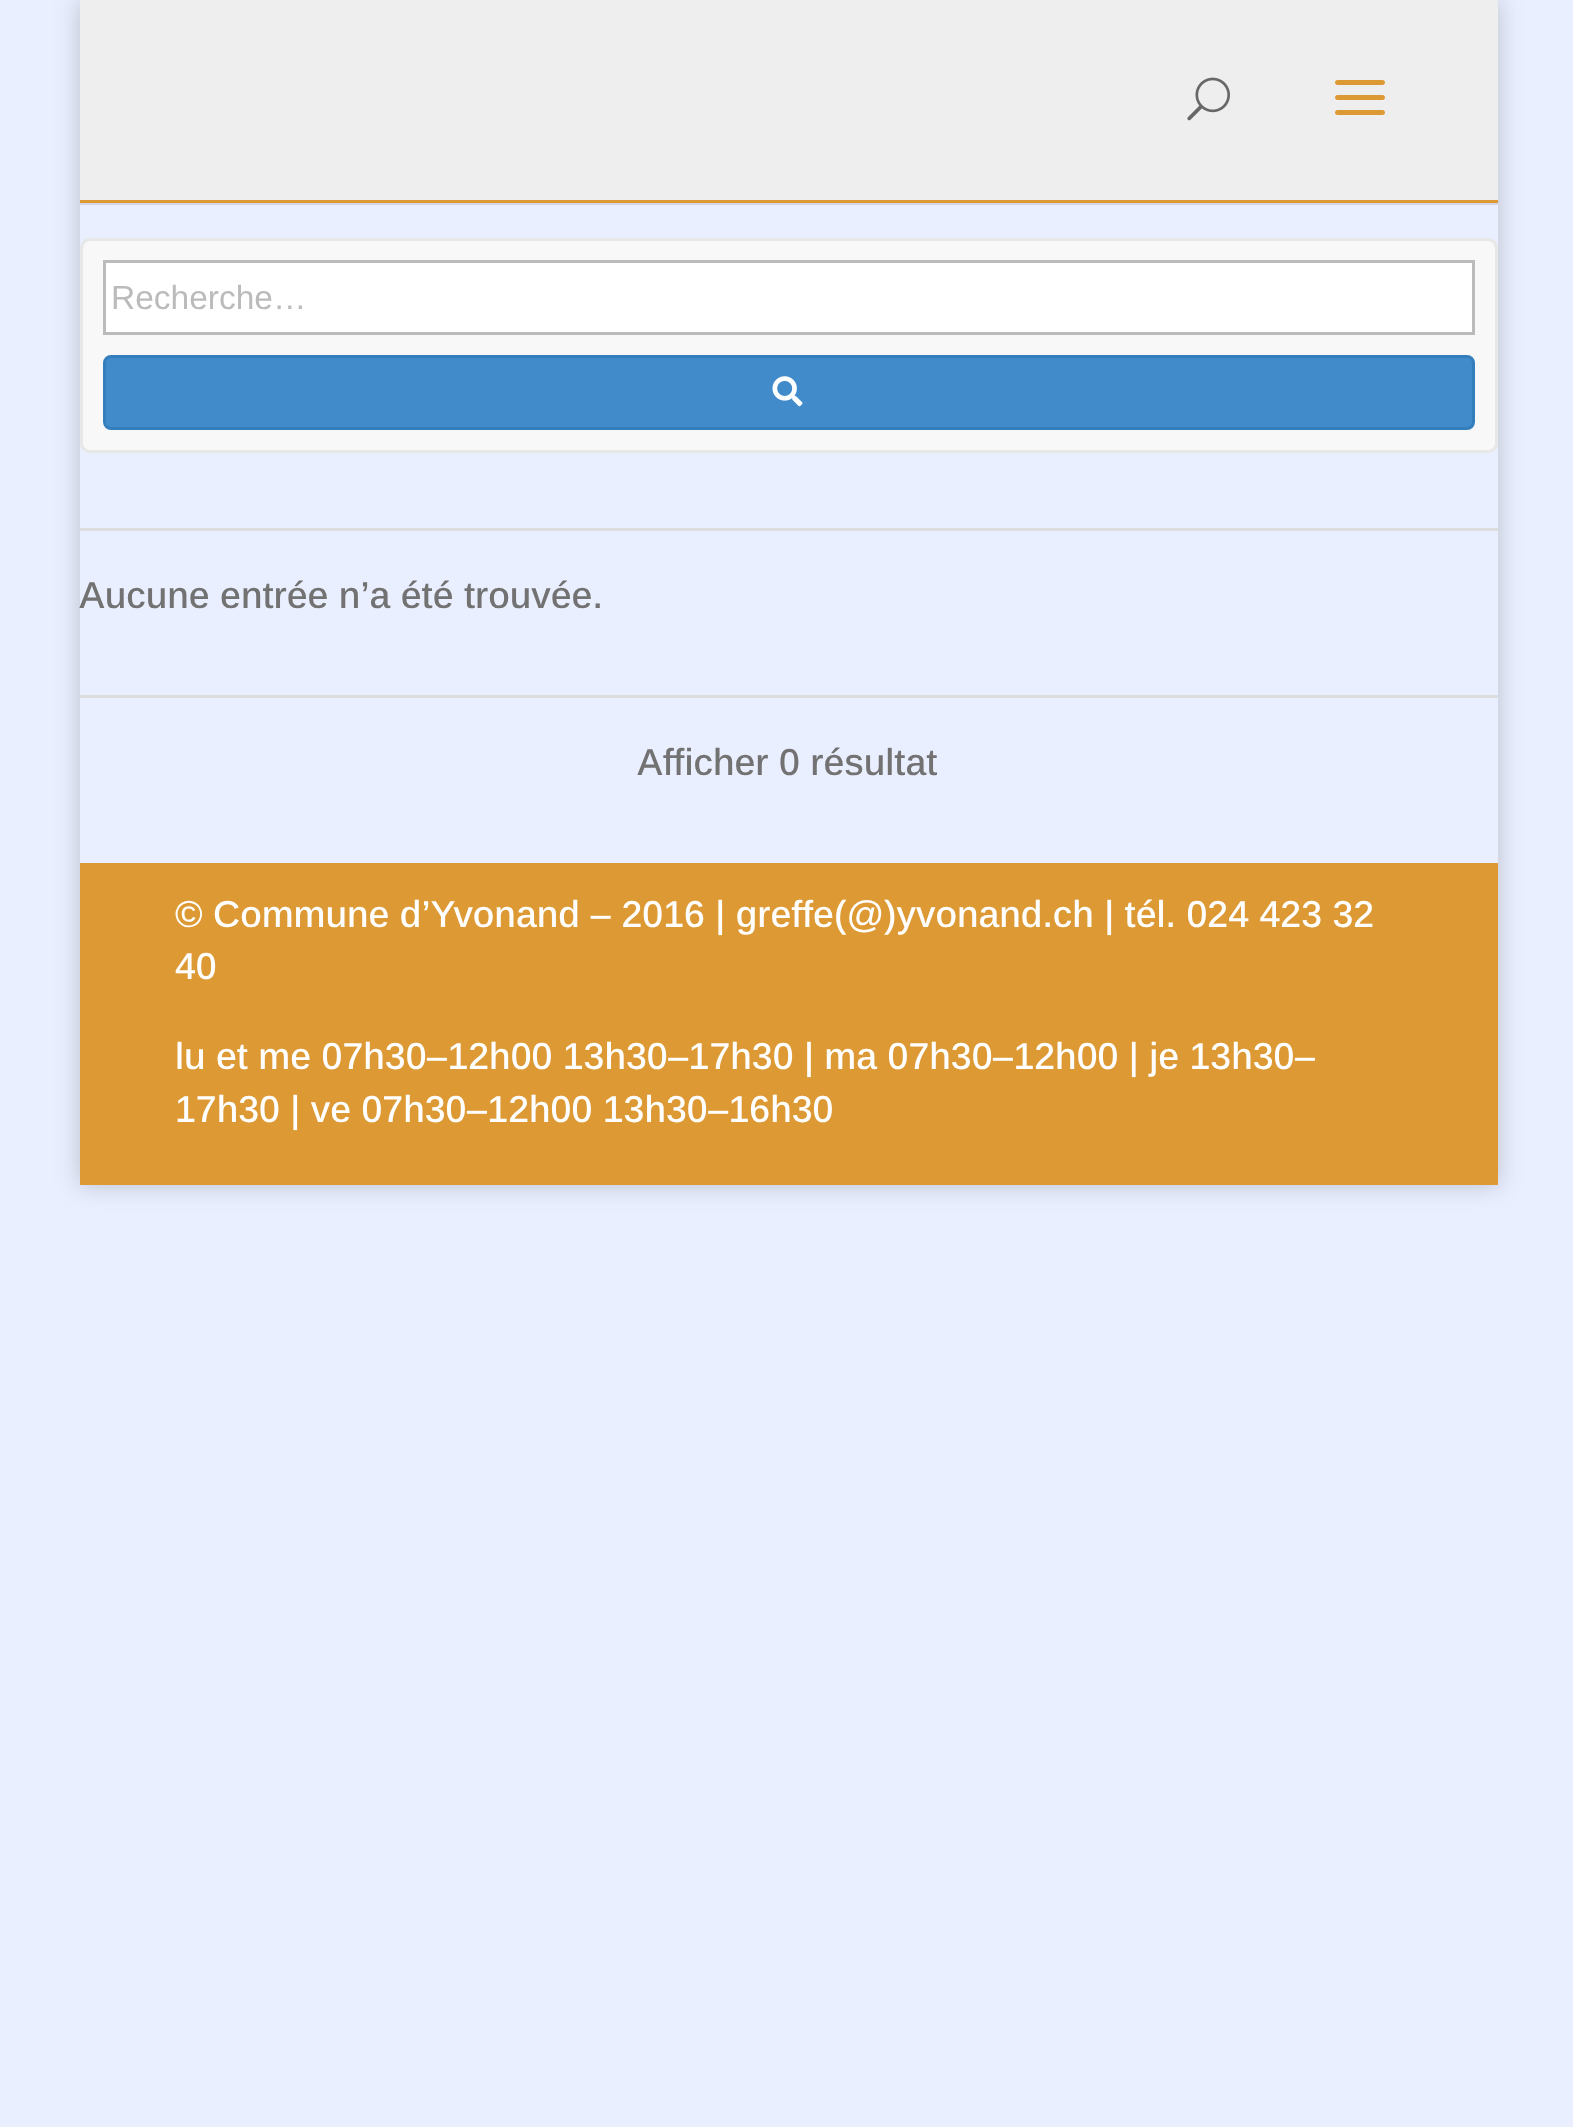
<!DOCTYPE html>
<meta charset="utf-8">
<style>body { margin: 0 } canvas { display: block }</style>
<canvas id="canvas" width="1573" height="2127"></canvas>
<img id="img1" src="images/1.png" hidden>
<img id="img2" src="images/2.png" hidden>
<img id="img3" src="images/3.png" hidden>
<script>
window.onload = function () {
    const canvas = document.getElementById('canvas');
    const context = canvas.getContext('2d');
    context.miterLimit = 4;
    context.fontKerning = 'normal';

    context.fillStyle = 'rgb(234, 239, 255)';
    context.fillRect(0, 0, 1573, 2127);
    context.save();
    context.beginPath();
    context.moveTo(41, 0);
    context.lineTo(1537, 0);
    context.lineTo(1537, 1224);
    context.lineTo(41, 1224);
    context.closePath();
    context.moveTo(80, 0);
    context.lineTo(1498, 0);
    context.lineTo(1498, 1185);
    context.lineTo(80, 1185);
    context.closePath();
    context.clip('evenodd');
    context.fillStyle = 'rgba(0, 0, 0, 0.2)';
    context.filter = 'blur(12.5px)';
    context.beginPath();
    context.rect(80, 0, 1418, 1185);
    context.fill();
    context.filter = 'none';
    context.restore();
    context.fillStyle = 'rgba(0, 0, 0, 0.1)';
    context.beginPath();
    context.moveTo(80, 202);
    context.lineTo(80, 205);
    context.lineTo(1498, 205);
    context.lineTo(1498, 3);
    context.lineTo(1498, 202);
    context.closePath();
    context.fill();
    context.fillStyle = 'rgb(238, 238, 238)';
    context.fillRect(80, 0, 1418, 200);
    context.fillStyle = 'rgb(221, 153, 51)';
    context.fillRect(80, 200, 1418, 3);
    context.drawImage(document.getElementById('img1'), 1187, 77, 43, 44);
    context.drawImage(document.getElementById('img2'), 1335, 80, 50, 35);
    context.fillStyle = 'rgb(248, 248, 248)';
    context.beginPath();
    context.roundRect(81.5, 239.5, 1415, 212, 8.5);
    context.fill();
    context.strokeStyle = 'rgb(231, 231, 231)';
    context.lineWidth = 3;
    context.stroke();
    context.fillStyle = 'rgb(255, 255, 255)';
    context.beginPath();
    context.rect(104.5, 261.5, 1369, 72);
    context.fill();
    context.strokeStyle = 'rgb(187, 187, 187)';
    context.stroke();
    context.fillStyle = 'rgb(66, 139, 202)';
    context.beginPath();
    context.roundRect(104.5, 356.5, 1369, 72, 6.5);
    context.fill();
    context.strokeStyle = 'rgb(53, 126, 189)';
    context.stroke();
    context.drawImage(document.getElementById('img3'), 772, 376, 31, 31);
    context.fillStyle = 'rgb(221, 221, 221)';
    context.fillRect(80, 528, 1418, 3);
    context.fillRect(80, 695, 1418, 3);
    context.fillStyle = 'rgb(221, 153, 51)';
    context.fillRect(80, 863, 1418, 322);
    context.font = '33.5px Arimo';
    context.fillStyle = 'rgb(187, 187, 187)';
    context.fillText('Recherche…', 111, 309);
    context.font = '500 37.5px Arimo';
    context.fillStyle = 'rgb(114, 114, 114)';
    context.fillText('Aucune entrée n’a été trouvée.', 79, 608);
    context.fillText('Afficher 0 résultat', 637, 775);
    context.fillStyle = 'rgb(255, 255, 255)';
    context.fillText('© Commune d’Yvonand – 2016 | greffe(@)yvonand.ch | tél. 024 423 32', 175, 927);
    context.fillText('40', 175, 979);
    context.fillText('lu et me 07h30–12h00 13h30–17h30 | ma 07h30–12h00 | je 13h30–', 175, 1069);
    context.fillText('17h30 | ve 07h30–12h00 13h30–16h30', 175, 1122);
};
</script>
